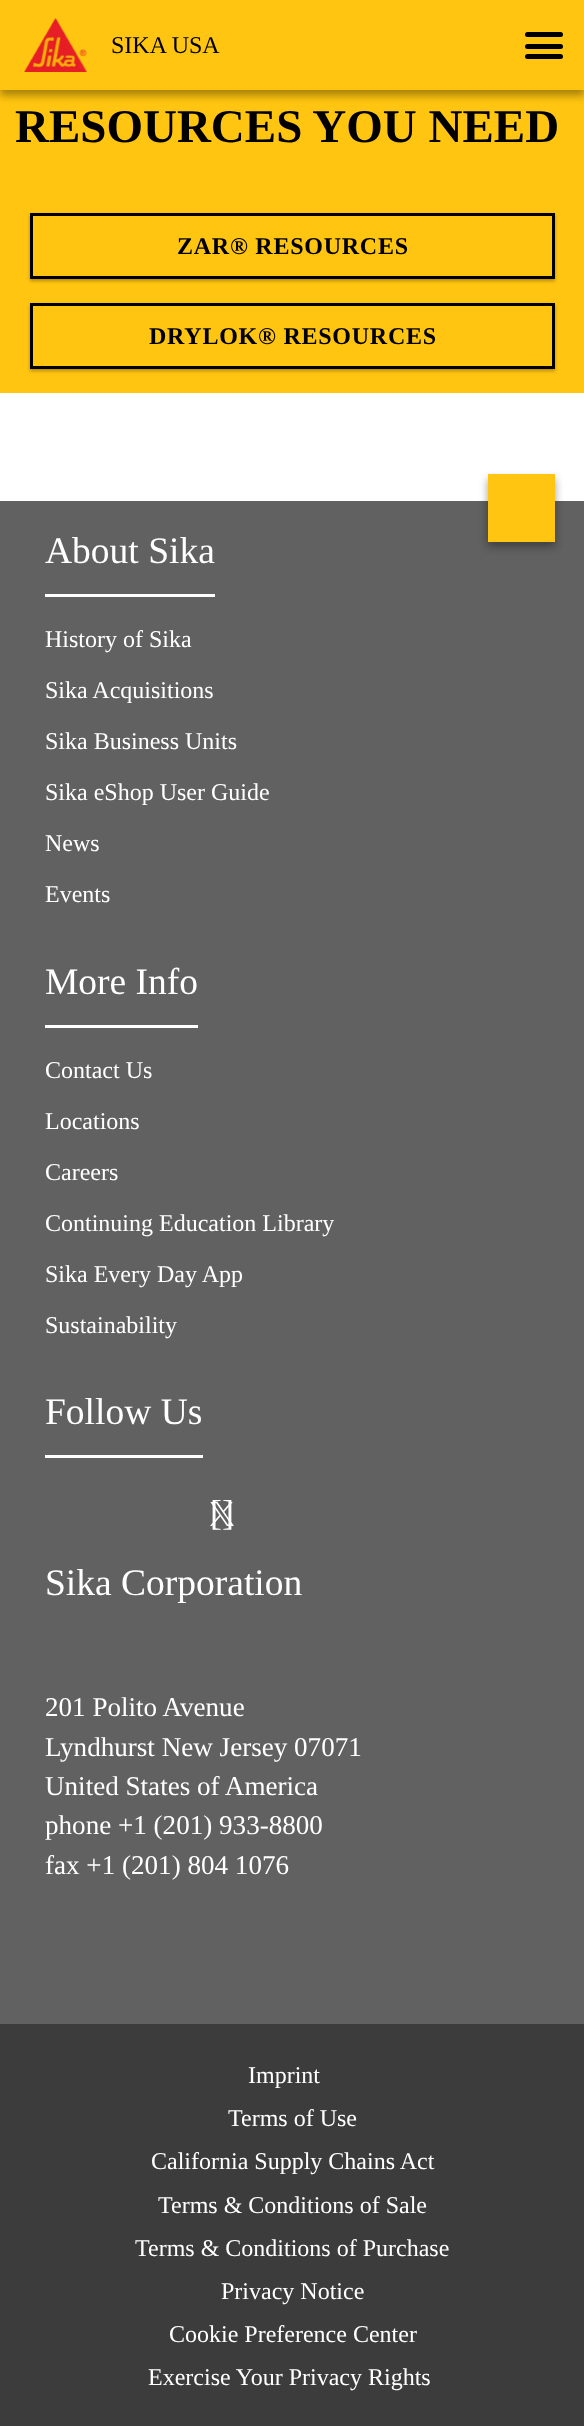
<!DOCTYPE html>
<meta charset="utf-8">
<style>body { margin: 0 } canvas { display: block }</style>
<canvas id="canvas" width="584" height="2426"></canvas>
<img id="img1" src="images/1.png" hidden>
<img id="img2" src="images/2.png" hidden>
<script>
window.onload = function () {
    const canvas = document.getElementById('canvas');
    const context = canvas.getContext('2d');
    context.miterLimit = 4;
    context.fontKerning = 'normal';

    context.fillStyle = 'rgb(255, 255, 255)';
    context.fillRect(0, 0, 584, 2426);
    context.fillStyle = 'rgb(255, 197, 16)';
    context.fillRect(0, 90, 584, 303);
    context.fillStyle = 'rgba(0, 0, 0, 0.23)';
    context.filter = 'blur(4.5px)';
    context.beginPath();
    context.rect(0, 5, 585, 90);
    context.fill();
    context.filter = 'none';
    context.fillStyle = 'rgba(0, 0, 0, 0.16)';
    context.filter = 'blur(4.5px)';
    context.beginPath();
    context.rect(0, 5, 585, 90);
    context.fill();
    context.filter = 'none';
    context.fillStyle = 'rgb(255, 197, 16)';
    context.fillRect(0, 0, 584, 90);
    context.drawImage(document.getElementById('img1'), 24, 18, 63, 54);
    context.fillStyle = 'rgb(0, 0, 0)';
    context.beginPath();
    context.roundRect(525, 32, 38, 5, 2.5);
    context.fill();
    context.beginPath();
    context.roundRect(525, 44, 38, 5, 2.5);
    context.fill();
    context.beginPath();
    context.roundRect(525, 54, 38, 5, 2.5);
    context.fill();
    context.save();
    context.beginPath();
    context.moveTo(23, 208);
    context.lineTo(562, 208);
    context.lineTo(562, 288);
    context.lineTo(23, 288);
    context.closePath();
    context.moveTo(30, 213);
    context.lineTo(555, 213);
    context.lineTo(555, 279);
    context.lineTo(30, 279);
    context.closePath();
    context.clip('evenodd');
    context.fillStyle = 'rgba(0, 0, 0, 0.1)';
    context.filter = 'blur(2px)';
    context.beginPath();
    context.rect(30, 215, 525, 66);
    context.fill();
    context.filter = 'none';
    context.restore();
    context.save();
    context.beginPath();
    context.moveTo(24, 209);
    context.lineTo(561, 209);
    context.lineTo(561, 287);
    context.lineTo(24, 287);
    context.closePath();
    context.moveTo(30, 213);
    context.lineTo(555, 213);
    context.lineTo(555, 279);
    context.lineTo(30, 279);
    context.closePath();
    context.clip('evenodd');
    context.fillStyle = 'rgba(0, 0, 0, 0.2)';
    context.filter = 'blur(1.5px)';
    context.beginPath();
    context.rect(30, 215, 525, 66);
    context.fill();
    context.filter = 'none';
    context.restore();
    context.strokeStyle = 'rgb(0, 0, 0)';
    context.lineWidth = 3;
    context.strokeRect(31.5, 214.5, 522, 63);
    context.save();
    context.beginPath();
    context.moveTo(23, 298);
    context.lineTo(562, 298);
    context.lineTo(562, 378);
    context.lineTo(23, 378);
    context.closePath();
    context.moveTo(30, 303);
    context.lineTo(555, 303);
    context.lineTo(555, 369);
    context.lineTo(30, 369);
    context.closePath();
    context.clip('evenodd');
    context.fillStyle = 'rgba(0, 0, 0, 0.1)';
    context.filter = 'blur(2px)';
    context.beginPath();
    context.rect(30, 305, 525, 66);
    context.fill();
    context.filter = 'none';
    context.restore();
    context.save();
    context.beginPath();
    context.moveTo(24, 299);
    context.lineTo(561, 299);
    context.lineTo(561, 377);
    context.lineTo(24, 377);
    context.closePath();
    context.moveTo(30, 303);
    context.lineTo(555, 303);
    context.lineTo(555, 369);
    context.lineTo(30, 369);
    context.closePath();
    context.clip('evenodd');
    context.fillStyle = 'rgba(0, 0, 0, 0.2)';
    context.filter = 'blur(1.5px)';
    context.beginPath();
    context.rect(30, 305, 525, 66);
    context.fill();
    context.filter = 'none';
    context.restore();
    context.strokeRect(31.5, 304.5, 522, 63);
    context.fillStyle = 'rgb(97, 97, 97)';
    context.fillRect(0, 501, 584, 1523);
    context.fillStyle = 'rgba(0, 0, 0, 0.23)';
    context.filter = 'blur(4.5px)';
    context.beginPath();
    context.rect(488, 479, 67, 67);
    context.fill();
    context.filter = 'none';
    context.fillStyle = 'rgba(0, 0, 0, 0.16)';
    context.filter = 'blur(4.5px)';
    context.beginPath();
    context.rect(488, 479, 67, 67);
    context.fill();
    context.filter = 'none';
    context.fillStyle = 'rgb(255, 197, 16)';
    context.fillRect(488, 474, 67, 68);
    context.fillStyle = 'rgb(255, 255, 255)';
    context.fillRect(45, 594, 170, 3);
    context.fillRect(45, 1025, 153, 3);
    context.fillRect(45, 1455, 158, 3);
    context.drawImage(document.getElementById('img2'), 210, 1502, 24, 24);
    context.fillStyle = 'rgb(60, 60, 60)';
    context.fillRect(0, 2024, 584, 402);
    context.font = '24px Liberation Serif';
    context.fillStyle = 'rgb(0, 0, 0)';
    context.fillText('SIKA USA', 111, 53);
    context.font = 'bold 47px Liberation Serif';
    context.fillText('RESOURCES YOU NEED', 15, 142);
    context.letterSpacing = '0.75px';
    context.font = 'bold 24px Liberation Serif';
    context.fillText('ZAR® RESOURCES', 177, 254);
    context.fillText('DRYLOK® RESOURCES', 149, 344);
    context.letterSpacing = '0px';
    context.font = '37.5px Liberation Serif';
    context.fillStyle = 'rgb(255, 255, 255)';
    context.fillText('About Sika', 45, 563);
    context.font = '24px Liberation Serif';
    context.fillText('History of Sika', 45, 647);
    context.fillText('Sika Acquisitions', 45, 698);
    context.fillText('Sika Business Units', 45, 749);
    context.fillText('Sika eShop User Guide', 45, 800);
    context.fillText('News', 45, 851);
    context.fillText('Events', 45, 902);
    context.font = '37.5px Liberation Serif';
    context.fillText('More Info', 45, 994);
    context.font = '24px Liberation Serif';
    context.fillText('Contact Us', 45, 1078);
    context.fillText('Locations', 45, 1129);
    context.fillText('Careers', 45, 1180);
    context.fillText('Continuing Education Library', 45, 1231);
    context.fillText('Sika Every Day App', 45, 1282);
    context.fillText('Sustainability', 45, 1333);
    context.font = '37.5px Liberation Serif';
    context.fillText('Follow Us', 45, 1424);
    context.font = '36px Liberation Serif';
    context.fillText('[]', 210, 1525);
    context.font = '37.5px Liberation Serif';
    context.fillText('Sika Corporation', 45, 1595);
    context.font = '27.1px Liberation Serif';
    context.fillText('201 Polito Avenue', 45, 1716);
    context.fillText('Lyndhurst New Jersey 07071', 45, 1756);
    context.fillText('United States of America', 45, 1795);
    context.fillText('phone +1 (201) 933-8800', 45, 1834);
    context.fillText('fax +1 (201) 804 1076', 45, 1874);
    context.font = '24px Liberation Serif';
    context.fillText('Imprint', 248, 2083);
    context.fillText('Terms of Use', 228, 2126);
    context.fillText('California Supply Chains Act', 151, 2169);
    context.fillText('Terms & Conditions of Sale', 158, 2213);
    context.fillText('Terms & Conditions of Purchase', 135, 2256);
    context.fillText('Privacy Notice', 221, 2299);
    context.fillText('Cookie Preference Center', 169, 2342);
    context.fillText('Exercise Your Privacy Rights', 148, 2385);
};
</script>
